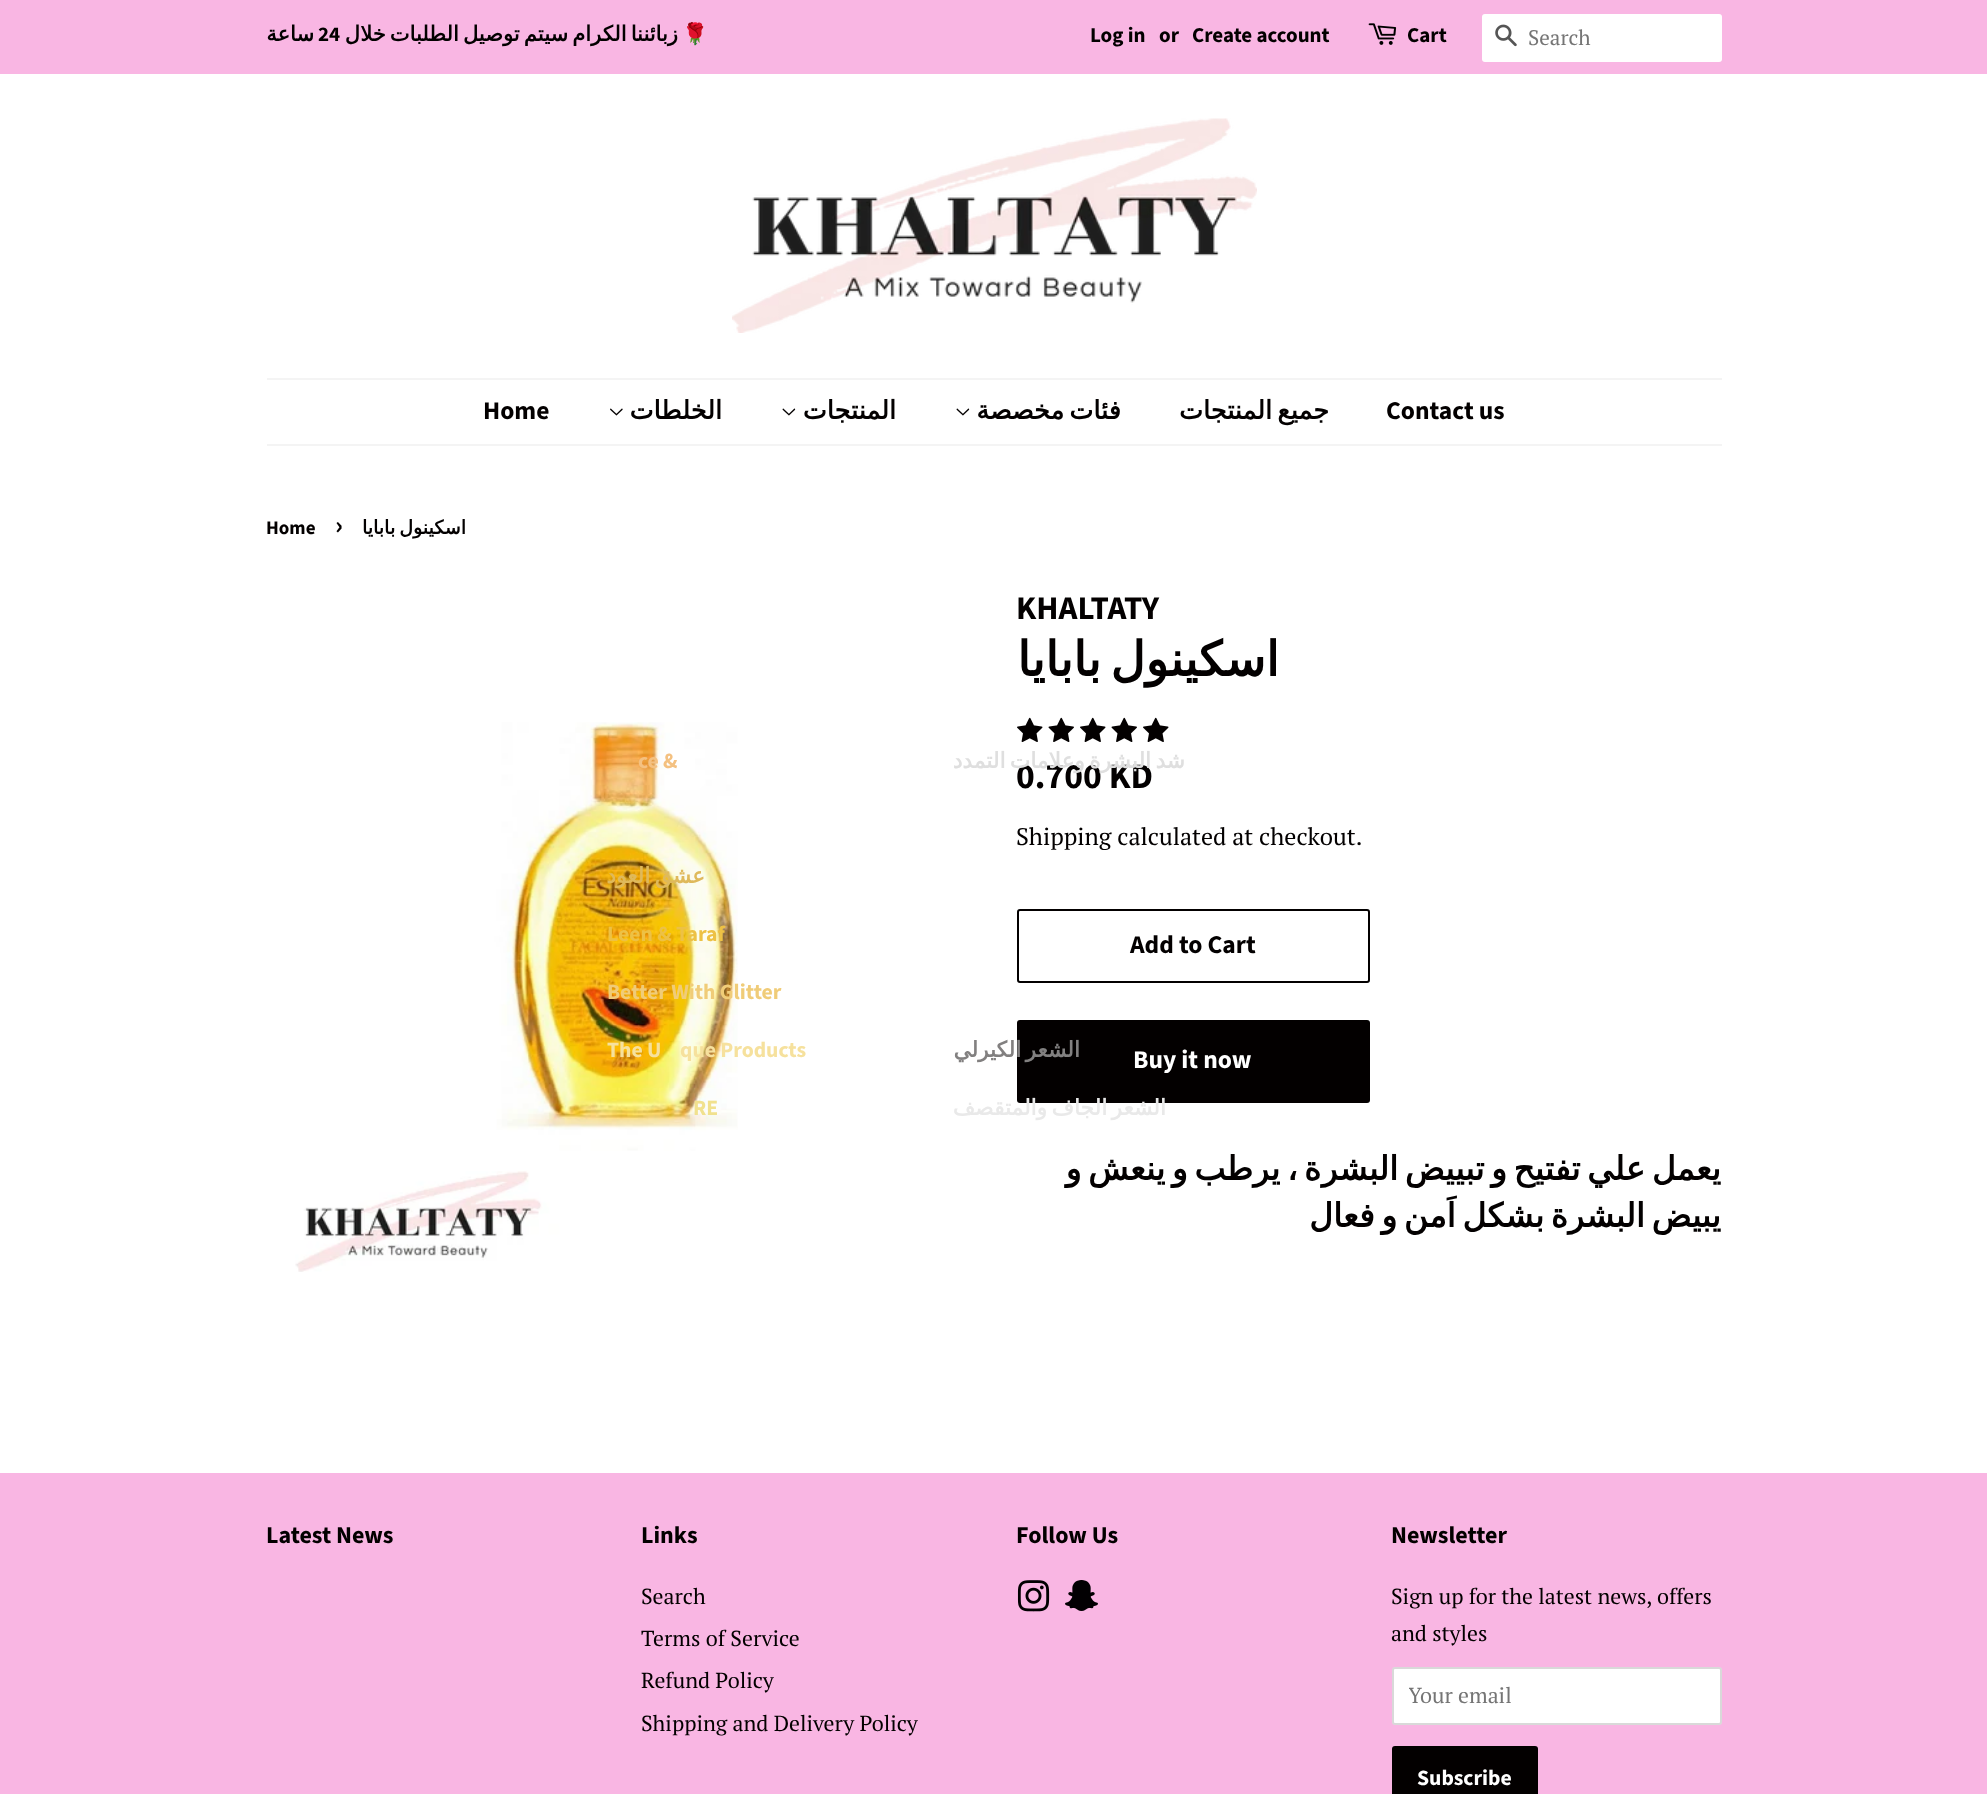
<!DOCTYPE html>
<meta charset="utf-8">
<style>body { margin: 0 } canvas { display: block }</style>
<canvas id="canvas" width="1987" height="1794"></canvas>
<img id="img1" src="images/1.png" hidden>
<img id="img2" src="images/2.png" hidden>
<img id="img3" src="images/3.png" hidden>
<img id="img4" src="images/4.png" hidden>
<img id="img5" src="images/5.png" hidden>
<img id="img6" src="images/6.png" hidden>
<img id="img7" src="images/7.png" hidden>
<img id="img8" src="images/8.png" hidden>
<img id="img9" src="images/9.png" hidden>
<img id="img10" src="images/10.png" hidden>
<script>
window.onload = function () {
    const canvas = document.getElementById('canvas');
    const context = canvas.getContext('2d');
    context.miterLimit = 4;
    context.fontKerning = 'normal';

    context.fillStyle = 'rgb(255, 255, 255)';
    context.fillRect(0, 0, 1987, 1794);
    context.fillStyle = 'rgb(249, 182, 227)';
    context.fillRect(0, 0, 1987, 74);
    context.drawImage(document.getElementById('img1'), 1368, 23, 29, 22);
    context.fillStyle = 'rgb(255, 255, 255)';
    context.beginPath();
    context.roundRect(1482, 14, 240, 48, 3);
    context.fill();
    context.drawImage(document.getElementById('img2'), 1495, 24, 22, 23);
    context.drawImage(document.getElementById('img3'), 732, 118, 525, 215);
    context.fillStyle = 'rgb(244, 244, 244)';
    context.fillRect(267, 378, 1455, 2);
    context.fillRect(267, 444, 1455, 2);
    context.drawImage(document.getElementById('img4'), 610, 408, 13, 8);
    context.drawImage(document.getElementById('img5'), 782, 408, 14, 8);
    context.drawImage(document.getElementById('img5'), 956, 408, 14, 8);
    context.drawImage(document.getElementById('img6'), 295, 722, 443, 550);
    context.drawImage(document.getElementById('img7'), 1017, 717, 26, 25);
    context.drawImage(document.getElementById('img8'), 1048, 717, 26, 25);
    context.drawImage(document.getElementById('img7'), 1080, 717, 26, 25);
    context.drawImage(document.getElementById('img8'), 1111, 717, 26, 25);
    context.drawImage(document.getElementById('img7'), 1143, 717, 26, 25);
    context.beginPath();
    context.roundRect(1018, 910, 351, 72, 2);
    context.strokeStyle = 'rgb(3, 0, 0)';
    context.lineWidth = 2;
    context.stroke();
    context.fillStyle = 'rgb(3, 0, 0)';
    context.beginPath();
    context.roundRect(1017, 1020, 353, 83, 3);
    context.fill();
    context.fillStyle = 'rgb(249, 182, 227)';
    context.fillRect(0, 1473, 1987, 321);
    context.drawImage(document.getElementById('img9'), 1017, 1580, 33, 32);
    context.drawImage(document.getElementById('img10'), 1065, 1580, 33, 31);
    context.fillStyle = 'rgb(255, 255, 255)';
    context.beginPath();
    context.roundRect(1392, 1667, 330, 58, 3);
    context.fill();
    context.beginPath();
    context.roundRect(1393, 1668, 328, 56, 2);
    context.strokeStyle = 'rgba(3, 0, 0, 0.15)';
    context.stroke();
    context.fillStyle = 'rgb(3, 0, 0)';
    context.beginPath();
    context.roundRect(1392, 1746, 146, 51, 3);
    context.fill();
    context.direction = 'rtl';
    context.font = 'bold 21px DejaVu Sans';
    context.fillText('ساعة', 314, 41);
    context.direction = 'ltr';
    context.font = 'bold 21px Source Sans Pro';
    context.fillText('24', 318, 41);
    context.wordSpacing = '-2.5px';
    context.direction = 'rtl';
    context.font = 'bold 21px DejaVu Sans';
    context.fillText('زبائننا الكرام سيتم توصيل الطلبات خلال', 678, 41);
    context.wordSpacing = '0px';
    context.direction = 'ltr';
    context.font = 'bold 21px Noto Color Emoji';
    context.fillText('🌹', 682, 41);
    context.font = 'bold 21px Source Sans Pro';
    context.fillText('Log in', 1090, 42);
    context.fillText('or', 1159, 42);
    context.fillText('Create account', 1192, 42);
    context.fillText('Cart', 1407, 42);
    context.font = '21px PT Serif';
    context.fillStyle = 'rgb(117, 117, 117)';
    context.fillText('Search', 1528, 45);
    context.font = 'bold 25.5px Source Sans Pro';
    context.fillStyle = 'rgb(3, 0, 0)';
    context.fillText('Home', 483, 419);
    context.direction = 'rtl';
    context.font = 'bold 25.5px DejaVu Sans';
    context.fillText('الخلطات', 722, 419);
    context.direction = 'ltr';
    context.font = 'bold 21.7px Source Sans Pro';
    context.fillStyle = 'rgb(244, 193, 129)';
    context.fillText('ce &', 638, 768);
    context.wordSpacing = '-2.5px';
    context.direction = 'rtl';
    context.font = 'bold 21.7px DejaVu Sans';
    context.fillStyle = 'rgb(223, 185, 91)';
    context.fillText('عشق العود', 705, 883);
    context.wordSpacing = '0px';
    context.direction = 'ltr';
    context.font = 'bold 21.7px Source Sans Pro';
    context.fillStyle = 'rgb(237, 193, 69)';
    context.fillText('Leen & Taraf', 607, 941);
    context.fillStyle = 'rgb(240, 204, 120)';
    context.fillText('Better With Glitter', 607, 999);
    context.fillStyle = 'rgb(246, 225, 157)';
    context.fillText('The U', 607, 1057);
    context.fillText('que Products', 680, 1057);
    context.fillStyle = 'rgb(241, 225, 142)';
    context.fillText('RE', 693, 1115);
    context.direction = 'rtl';
    context.font = 'bold 25.5px DejaVu Sans';
    context.fillStyle = 'rgb(3, 0, 0)';
    context.fillText('المنتجات', 896, 419);
    context.wordSpacing = '-3px';
    context.fillText('فئات مخصصة', 1121, 419);
    context.wordSpacing = '-2.5px';
    context.font = 'bold 21.7px DejaVu Sans';
    context.fillStyle = 'rgb(130, 128, 128)';
    context.fillText('الشعر الكيرلي', 1080, 1057);
    context.fillStyle = 'rgb(233, 233, 233)';
    context.fillText('الشعر الجاف والمتقصف', 1166, 1115);
    context.wordSpacing = '-3px';
    context.font = 'bold 25.5px DejaVu Sans';
    context.fillStyle = 'rgb(3, 0, 0)';
    context.fillText('جميع المنتجات', 1329, 419);
    context.wordSpacing = '0px';
    context.direction = 'ltr';
    context.font = 'bold 25.5px Source Sans Pro';
    context.fillText('Contact us', 1386, 419);
    context.font = 'bold 19px Source Sans Pro';
    context.fillText('Home', 266, 534);
    context.font = 'bold 27px Source Sans Pro';
    context.fillText('›', 335, 534);
    context.wordSpacing = '-2px';
    context.direction = 'rtl';
    context.font = 'bold 19px DejaVu Sans';
    context.fillText('اسكينول بابايا', 466, 534);
    context.wordSpacing = '0px';
    context.direction = 'ltr';
    context.font = 'bold 33px Source Sans Pro';
    context.fillText('KHALTATY', 1016, 619);
    context.wordSpacing = '-6px';
    context.direction = 'rtl';
    context.font = 'bold 48px DejaVu Sans';
    context.fillText('اسكينول بابايا', 1279, 676);
    context.wordSpacing = '0px';
    context.direction = 'ltr';
    context.font = 'bold 35.5px Source Sans Pro';
    context.fillText('0.700 KD', 1016, 788);
    context.wordSpacing = '-2.5px';
    context.direction = 'rtl';
    context.font = 'bold 21.7px DejaVu Sans';
    context.fillStyle = 'rgb(223, 223, 223)';
    context.fillText('شد البشرة وعلامات التمدد', 1185, 768);
    context.wordSpacing = '0px';
    context.direction = 'ltr';
    context.font = '24px PT Serif';
    context.fillStyle = 'rgb(3, 0, 0)';
    context.fillText('Shipping calculated at checkout.', 1016, 845);
    context.font = 'bold 25.5px Source Sans Pro';
    context.fillText('Add to Cart', 1130, 953);
    context.fillStyle = 'rgb(255, 255, 255)';
    context.fillText('Buy it now', 1133, 1068);
    context.wordSpacing = '-3.9px';
    context.direction = 'rtl';
    context.font = 'bold 33px DejaVu Sans';
    context.fillStyle = 'rgb(3, 0, 0)';
    context.fillText('يعمل علي تفتيح و تبييض البشرة ، يرطب و ينعش و', 1721, 1180);
    context.fillText('يبيض البشرة بشكل اَمن و فعال', 1721, 1227);
    context.wordSpacing = '0px';
    context.direction = 'ltr';
    context.font = 'bold 24px Source Sans Pro';
    context.fillText('Latest News', 266, 1543);
    context.fillText('Links', 641, 1543);
    context.font = '21.7px PT Serif';
    context.fillText('Search', 641, 1604);
    context.fillText('Terms of Service', 641, 1646);
    context.fillText('Refund Policy', 641, 1688);
    context.fillText('Shipping and Delivery Policy', 641, 1731);
    context.font = 'bold 24px Source Sans Pro';
    context.fillText('Follow Us', 1016, 1543);
    context.fillText('Newsletter', 1391, 1543);
    context.font = '21.7px PT Serif';
    context.fillText('Sign up for the latest news, offers', 1391, 1604);
    context.fillText('and styles', 1391, 1641);
    context.save();
    context.beginPath();
    context.rect(1409, 1680, 297, 29);
    context.clip();
    context.fillStyle = 'rgb(117, 117, 117)';
    context.fillText('Your email', 1408, 1703);
    context.restore();
    context.font = 'bold 21.7px Source Sans Pro';
    context.fillStyle = 'rgb(255, 255, 255)';
    context.fillText('Subscribe', 1417, 1785);
};
</script>
